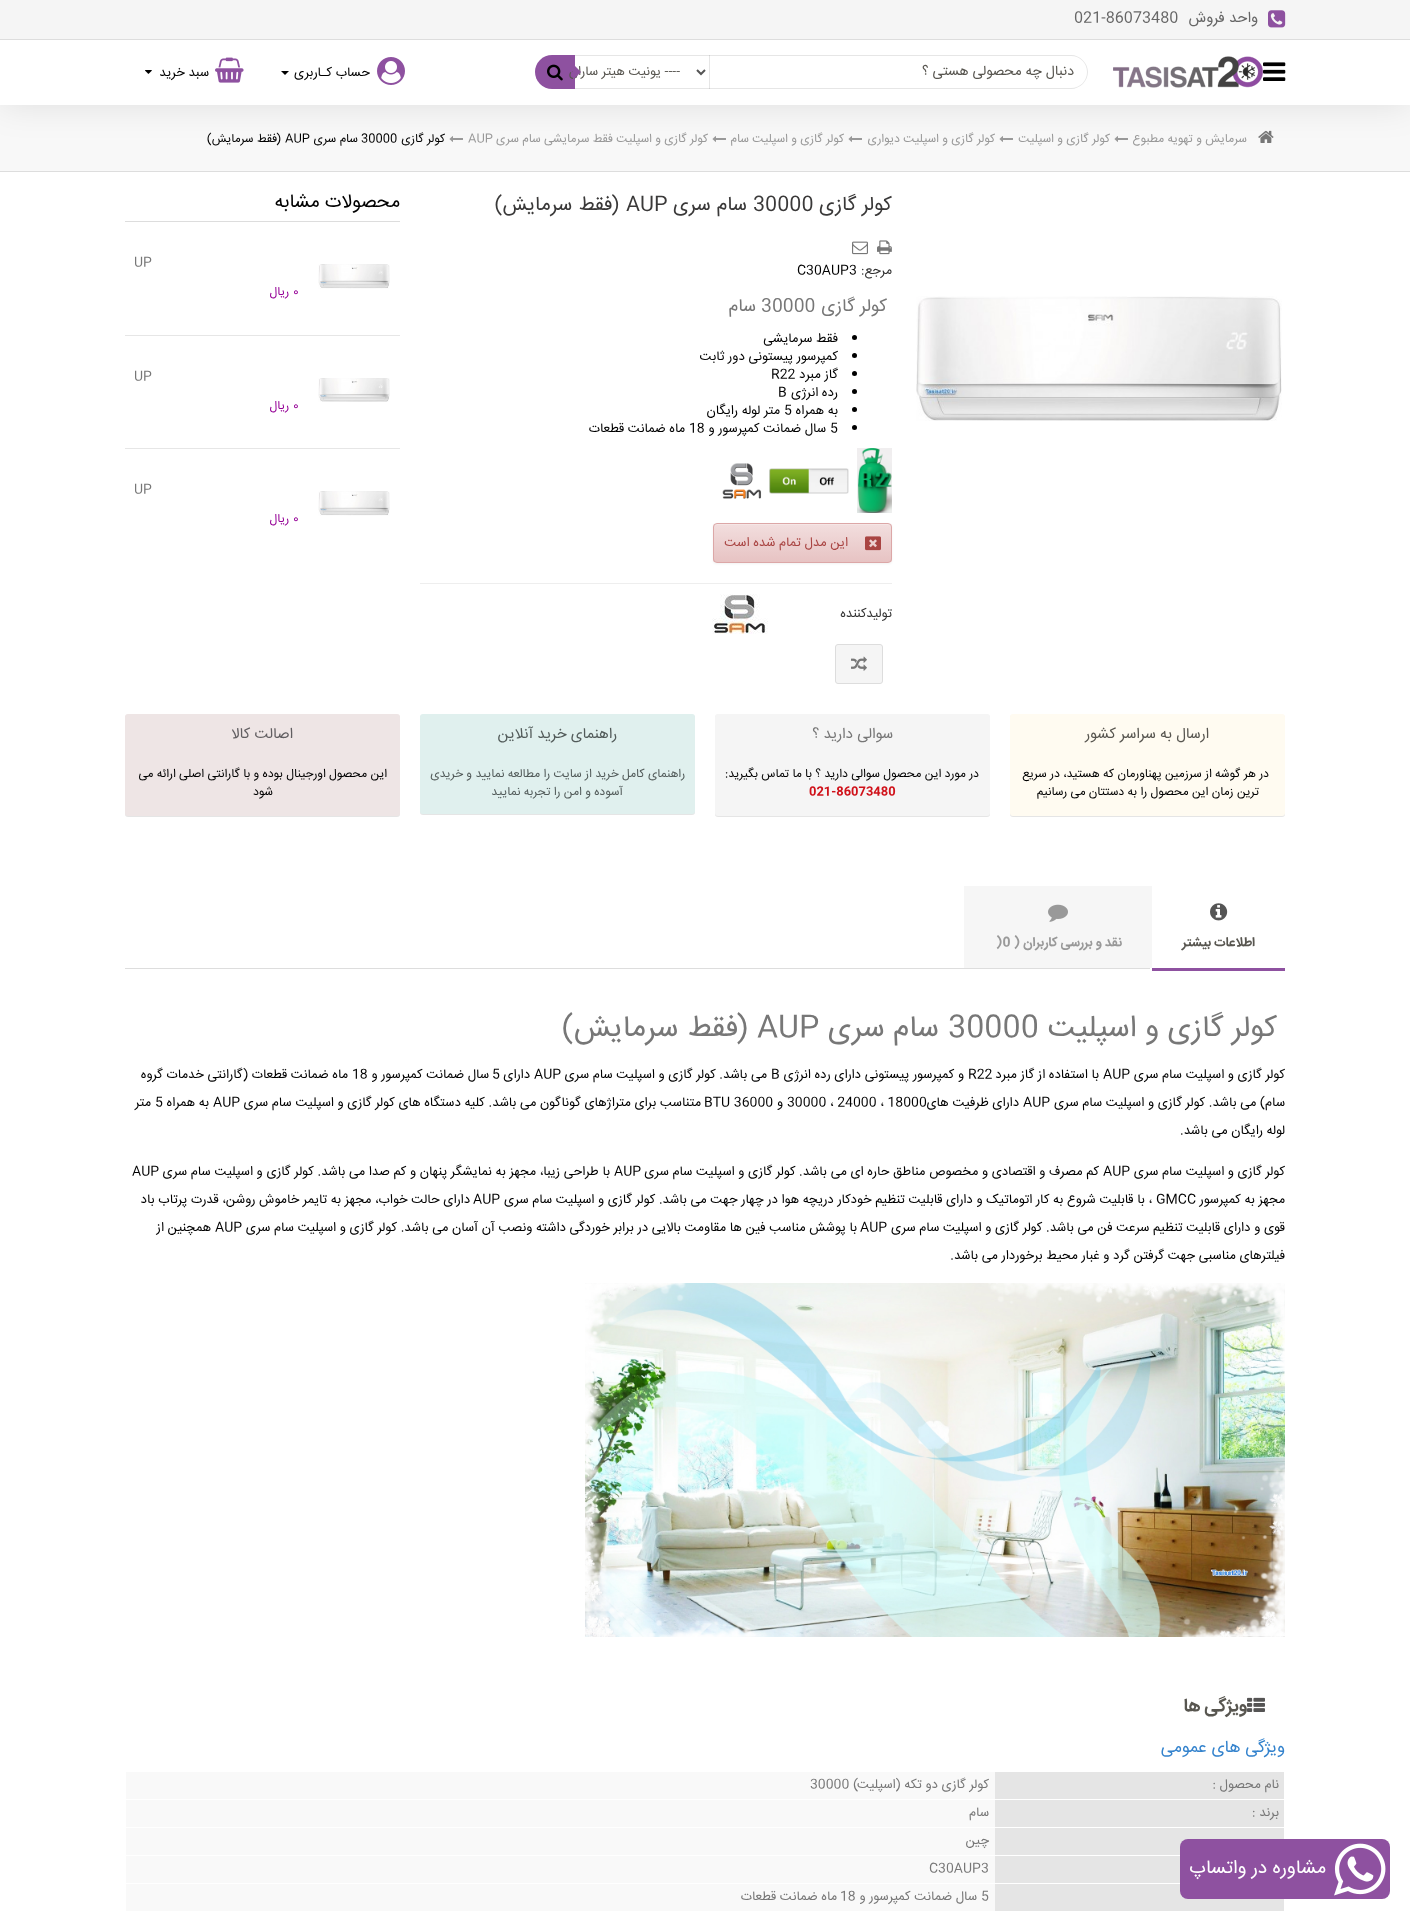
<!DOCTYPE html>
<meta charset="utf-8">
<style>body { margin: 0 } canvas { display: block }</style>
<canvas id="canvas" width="1410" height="1929"></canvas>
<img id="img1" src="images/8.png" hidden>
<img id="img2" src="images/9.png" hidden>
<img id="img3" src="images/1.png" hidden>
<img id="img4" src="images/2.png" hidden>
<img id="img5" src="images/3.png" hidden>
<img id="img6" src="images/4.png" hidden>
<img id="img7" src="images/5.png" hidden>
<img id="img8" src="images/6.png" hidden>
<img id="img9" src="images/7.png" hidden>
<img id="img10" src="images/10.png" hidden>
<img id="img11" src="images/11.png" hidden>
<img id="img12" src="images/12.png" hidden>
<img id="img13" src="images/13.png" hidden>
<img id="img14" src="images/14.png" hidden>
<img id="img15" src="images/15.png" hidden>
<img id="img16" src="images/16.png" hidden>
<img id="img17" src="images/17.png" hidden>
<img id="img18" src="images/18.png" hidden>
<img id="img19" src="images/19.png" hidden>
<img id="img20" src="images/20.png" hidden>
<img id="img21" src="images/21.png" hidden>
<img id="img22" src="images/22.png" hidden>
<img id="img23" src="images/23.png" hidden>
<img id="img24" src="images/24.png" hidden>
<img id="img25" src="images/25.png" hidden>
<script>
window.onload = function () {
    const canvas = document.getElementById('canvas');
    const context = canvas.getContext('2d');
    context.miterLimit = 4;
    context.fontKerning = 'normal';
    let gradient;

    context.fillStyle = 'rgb(255, 255, 255)';
    context.fillRect(0, 0, 1410, 1929);
    context.fillStyle = 'rgb(248, 248, 248)';
    context.fillRect(0, 105, 1410, 66);
    context.drawImage(document.getElementById('img1'), 1258, 130, 16, 13);
    context.drawImage(document.getElementById('img2'), 1114, 136, 14, 6);
    context.drawImage(document.getElementById('img2'), 999, 136, 14, 6);
    context.drawImage(document.getElementById('img2'), 848, 136, 14, 6);
    context.drawImage(document.getElementById('img2'), 712, 136, 14, 6);
    context.drawImage(document.getElementById('img2'), 449, 136, 14, 6);
    context.fillStyle = 'rgba(0, 0, 0, 0.1)';
    context.filter = 'blur(17.5px)';
    context.beginPath();
    context.rect(0, 0, 1410, 105);
    context.fill();
    context.filter = 'none';
    context.fillStyle = 'rgb(255, 255, 255)';
    context.fillRect(0, 40, 1410, 65);
    context.fillStyle = 'rgb(230, 230, 230)';
    context.fillRect(575, 88, 135, 1);
    context.fillRect(709, 55, 1, 34);
    context.fillStyle = 'rgb(207, 207, 207)';
    context.fillRect(709, 88, 1, 1);
    context.fillStyle = 'rgb(245, 245, 245)';
    context.fillRect(0, 0, 1410, 39);
    context.fillStyle = 'rgb(221, 221, 221)';
    context.fillRect(0, 39, 1410, 1);
    context.drawImage(document.getElementById('img3'), 1268, 10, 18, 18);
    context.drawImage(document.getElementById('img4'), 1263, 62, 23, 19);
    context.drawImage(document.getElementById('img5'), 1113, 56, 150, 32);
    context.fillStyle = 'rgb(230, 230, 230)';
    context.beginPath();
    context.moveTo(710, 55);
    context.lineTo(1071, 55);
    context.bezierCurveTo(1080, 55, 1088, 63, 1088, 72);
    context.bezierCurveTo(1088, 81, 1080, 89, 1071, 89);
    context.lineTo(710, 89);
    context.closePath();
    context.moveTo(710, 56);
    context.lineTo(1071, 56);
    context.bezierCurveTo(1080, 56, 1087, 63, 1087, 72);
    context.bezierCurveTo(1087, 81, 1080, 88, 1071, 88);
    context.lineTo(710, 88);
    context.closePath();
    context.fill('evenodd');
    context.fillRect(575, 55, 135, 1);
    context.fillStyle = 'rgb(207, 207, 207)';
    context.fillRect(709, 55, 1, 1);
    context.beginPath();
    context.moveTo(697, 70);
    context.lineTo(701, 74);
    context.lineTo(705, 70);
    context.strokeStyle = 'rgb(85, 85, 85)';
    context.lineWidth = 2;
    context.stroke();
    context.fillStyle = 'rgb(142, 81, 160)';
    context.beginPath();
    context.roundRect(535, 55, 40, 34, [17, 0, 0, 17]);
    context.fill();
    context.drawImage(document.getElementById('img6'), 547, 64, 16, 17);
    context.drawImage(document.getElementById('img7'), 377, 57, 28, 28);
    context.fillStyle = 'rgb(0, 0, 0)';
    context.beginPath();
    context.moveTo(281, 71);
    context.lineTo(289, 71);
    context.lineTo(285, 75);
    context.closePath();
    context.fill();
    context.drawImage(document.getElementById('img8'), 215, 57, 29, 26);
    context.drawImage(document.getElementById('img9'), 145, 70, 7, 4);
    context.fillStyle = 'rgb(221, 221, 221)';
    context.fillRect(0, 171, 1410, 1);
    context.drawImage(document.getElementById('img10'), 916, 296, 366, 125);
    context.drawImage(document.getElementById('img11'), 877, 240, 15, 15);
    context.drawImage(document.getElementById('img12'), 852, 241, 16, 14);
    context.fillStyle = 'rgb(0, 0, 0)';
    context.beginPath();
    context.arc(854.5, 337.5, 2.5, 0, 2 * Math.PI);
    context.fill();
    context.beginPath();
    context.arc(854.5, 355.5, 2.5, 0, 2 * Math.PI);
    context.fill();
    context.beginPath();
    context.arc(854.5, 373.5, 2.5, 0, 2 * Math.PI);
    context.fill();
    context.beginPath();
    context.arc(854.5, 391.5, 2.5, 0, 2 * Math.PI);
    context.fill();
    context.beginPath();
    context.arc(854.5, 409.5, 2.5, 0, 2 * Math.PI);
    context.fill();
    context.beginPath();
    context.arc(854.5, 427.5, 2.5, 0, 2 * Math.PI);
    context.fill();
    context.drawImage(document.getElementById('img13'), 857, 448, 35, 65);
    context.drawImage(document.getElementById('img14'), 769, 468, 80, 26);
    context.drawImage(document.getElementById('img15'), 722, 463, 40, 36);
    context.fillStyle = 'rgb(238, 238, 238)';
    context.fillRect(420, 583, 472, 1);
    context.fillStyle = 'rgba(0, 0, 0, 0.05)';
    context.filter = 'blur(1px)';
    context.beginPath();
    context.roundRect(713, 524, 179, 40, 4);
    context.fill();
    context.filter = 'none';
    context.save();
    context.beginPath();
    context.roundRect(713, 523, 179, 40, 4);
    context.clip();
    gradient = context.createLinearGradient(803, 524, 803, 562);
    gradient.addColorStop(0, 'rgb(242, 222, 222)');
    gradient.addColorStop(1, 'rgb(231, 195, 195)');
    context.fillStyle = gradient;
    context.fillRect(713, 524, 179, 38);
    context.restore();
    context.fillStyle = 'rgb(245, 230, 230)';
    context.beginPath();
    context.moveTo(717, 525);
    context.lineTo(888, 525);
    context.bezierCurveTo(890, 525, 891, 526, 891, 528);
    context.lineTo(891, 527);
    context.bezierCurveTo(891, 525, 890, 524, 888, 524);
    context.lineTo(717, 524);
    context.bezierCurveTo(715, 524, 714, 525, 714, 527);
    context.lineTo(714, 528);
    context.bezierCurveTo(714, 526, 715, 525, 717, 525);
    context.closePath();
    context.fill();
    context.beginPath();
    context.roundRect(713.5, 523.5, 178, 39, 3.5);
    context.strokeStyle = 'rgb(220, 167, 167)';
    context.lineWidth = 1;
    context.stroke();
    context.drawImage(document.getElementById('img16'), 865, 536, 16, 15);
    context.drawImage(document.getElementById('img17'), 712, 594, 56, 40);
    context.fillStyle = 'rgb(245, 245, 245)';
    context.beginPath();
    context.roundRect(835.5, 644.5, 47, 39, 2.5);
    context.fill();
    context.strokeStyle = 'rgb(221, 221, 221)';
    context.stroke();
    context.drawImage(document.getElementById('img18'), 851, 656, 16, 15);
    context.fillStyle = 'rgb(221, 221, 221)';
    context.fillRect(125, 221, 275, 1);
    context.fillStyle = 'rgb(230, 230, 230)';
    context.fillRect(125, 335, 275, 1);
    context.drawImage(document.getElementById('img19'), 318, 264, 72, 25);
    context.fillRect(125, 448, 275, 1);
    context.drawImage(document.getElementById('img20'), 318, 378, 72, 24);
    context.drawImage(document.getElementById('img19'), 318, 491, 72, 25);
    context.fillStyle = 'rgba(0, 0, 0, 0.1)';
    context.filter = 'blur(0.5px)';
    context.beginPath();
    context.roundRect(1010, 715, 275, 102, 3);
    context.fill();
    context.filter = 'none';
    context.fillStyle = 'rgb(255, 251, 241)';
    context.beginPath();
    context.roundRect(1010, 714, 275, 102, 3);
    context.fill();
    context.fillStyle = 'rgba(0, 0, 0, 0.1)';
    context.filter = 'blur(0.5px)';
    context.beginPath();
    context.roundRect(715, 715, 275, 102, 3);
    context.fill();
    context.filter = 'none';
    context.fillStyle = 'rgb(245, 245, 245)';
    context.beginPath();
    context.roundRect(715, 714, 275, 102, 3);
    context.fill();
    context.fillStyle = 'rgba(0, 0, 0, 0.1)';
    context.filter = 'blur(0.5px)';
    context.beginPath();
    context.roundRect(420, 715, 275, 100, 3);
    context.fill();
    context.filter = 'none';
    context.fillStyle = 'rgb(224, 240, 238)';
    context.beginPath();
    context.roundRect(420, 714, 275, 100, 3);
    context.fill();
    context.fillStyle = 'rgba(0, 0, 0, 0.1)';
    context.filter = 'blur(0.5px)';
    context.beginPath();
    context.roundRect(125, 715, 275, 102, 3);
    context.fill();
    context.filter = 'none';
    context.fillStyle = 'rgb(238, 229, 229)';
    context.beginPath();
    context.roundRect(125, 714, 275, 102, 3);
    context.fill();
    context.fillStyle = 'rgb(221, 221, 221)';
    context.fillRect(125, 968, 1025, 1);
    context.fillStyle = 'rgb(142, 81, 160)';
    context.fillRect(1152, 968, 133, 3);
    context.drawImage(document.getElementById('img21'), 1210, 903, 18, 18);
    context.fillStyle = 'rgb(246, 246, 246)';
    context.fillRect(964, 886, 188, 82);
    context.drawImage(document.getElementById('img22'), 1048, 904, 20, 18);
    context.drawImage(document.getElementById('img23'), 585, 1283, 700, 354);
    context.drawImage(document.getElementById('img24'), 1247, 1697, 18, 15);
    context.fillStyle = 'rgb(249, 249, 249)';
    context.fillRect(126, 1772, 869, 27);
    context.fillStyle = 'rgb(229, 229, 229)';
    context.fillRect(995, 1772, 289, 27);
    context.fillStyle = 'rgb(249, 249, 249)';
    context.fillRect(126, 1800, 869, 27);
    context.fillStyle = 'rgb(229, 229, 229)';
    context.fillRect(995, 1800, 289, 27);
    context.fillStyle = 'rgb(249, 249, 249)';
    context.fillRect(126, 1828, 869, 27);
    context.fillStyle = 'rgb(229, 229, 229)';
    context.fillRect(995, 1828, 289, 27);
    context.fillStyle = 'rgb(249, 249, 249)';
    context.fillRect(126, 1856, 869, 27);
    context.fillStyle = 'rgb(229, 229, 229)';
    context.fillRect(995, 1856, 185, 27);
    context.fillStyle = 'rgb(249, 249, 249)';
    context.fillRect(126, 1884, 869, 27);
    context.fillStyle = 'rgb(229, 229, 229)';
    context.fillRect(995, 1884, 289, 27);
    context.fillStyle = 'rgb(142, 81, 160)';
    context.beginPath();
    context.roundRect(1180, 1839, 210, 60, 8);
    context.fill();
    context.drawImage(document.getElementById('img25'), 1334, 1843, 52, 53);
    context.direction = 'rtl';
    context.font = '15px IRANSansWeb';
    context.fillStyle = 'rgb(102, 102, 102)';
    context.fillText('واحد فروش', 1258, 22);
    context.direction = 'ltr';
    context.fillText('021-86073480', 1074, 22);
    context.direction = 'rtl';
    context.font = '14px IRANSansWeb';
    context.fillStyle = 'rgb(88, 86, 80)';
    context.fillText('دنبال چه محصولی هستی ؟', 1074, 75);
    context.font = '13px IRANSansWeb';
    context.fillText('---- یونیت هیتر ساران', 680, 75);
    context.fillStyle = 'rgb(142, 81, 160)';
    context.beginPath();
    context.moveTo(573, 80);
    context.lineTo(573, 64);
    context.lineTo(581, 72);
    context.closePath();
    context.fill();
    context.fillStyle = 'rgb(0, 0, 0)';
    context.fillText('حساب کـاربری', 370, 76);
    context.fillText('سبد خرید', 209, 76);
    context.font = '12px IRANSansWeb';
    context.fillStyle = 'rgb(153, 153, 153)';
    context.fillText('سرمایش و تهویه مطبوع', 1247, 142);
    context.fillText('کولر گازی و اسپلیت', 1110, 142);
    context.fillText('کولر گازی و اسپلیت دیواری', 995, 142);
    context.fillText('کولر گازی و اسپلیت سام', 844, 142);
    context.fillText('کولر گازی و اسپلیت فقط سرمایشی سام سری', 708, 142);
    context.direction = 'ltr';
    context.fillText('AUP', 468, 142);
    context.direction = 'rtl';
    context.fillStyle = 'rgb(0, 0, 0)';
    context.fillText('کولر گازی', 445, 142);
    context.direction = 'ltr';
    context.fillText('30000', 361, 142);
    context.direction = 'rtl';
    context.fillText('سام سری', 358, 142);
    context.direction = 'ltr';
    context.fillText('AUP', 285, 142);
    context.direction = 'rtl';
    context.fillText('(فقط سرمایش)', 281, 142);
    context.font = '20px IRANSansWeb';
    context.fillStyle = 'rgb(58, 57, 57)';
    context.fillText('کولر گازی', 892, 210);
    context.direction = 'ltr';
    context.fillText('30000', 753, 210);
    context.direction = 'rtl';
    context.fillText('سام سری', 747, 210);
    context.direction = 'ltr';
    context.fillText('AUP', 626, 210);
    context.wordSpacing = '1px';
    context.direction = 'rtl';
    context.fillText('(فقط سرمایش)', 619, 210);
    context.wordSpacing = '0px';
    context.font = '13px IRANSansWeb';
    context.fillStyle = 'rgb(51, 51, 51)';
    context.fillText('مرجع:', 892, 274);
    context.direction = 'ltr';
    context.fillStyle = 'rgb(0, 0, 0)';
    context.fillText('C30AUP3', 797, 274);
    context.direction = 'rtl';
    context.font = '18px IRANSansWeb';
    context.fillStyle = 'rgb(119, 119, 119)';
    context.fillText('کولر گازی', 887, 311);
    context.direction = 'ltr';
    context.fillText('30000', 761, 311);
    context.direction = 'rtl';
    context.fillText('سام', 756, 311);
    context.font = '13px IRANSansWeb';
    context.fillStyle = 'rgb(0, 0, 0)';
    context.fillText('فقط سرمایشی', 838, 342);
    context.fillText('کمپرسور پیستونی دور ثابت', 838, 360);
    context.fillText('گاز مبرد', 838, 378);
    context.direction = 'ltr';
    context.fillText('R22', 771, 378);
    context.direction = 'rtl';
    context.fillText('رده انرژی', 838, 396);
    context.direction = 'ltr';
    context.fillText('B', 778, 396);
    context.direction = 'rtl';
    context.fillText('به همراه', 838, 414);
    context.direction = 'ltr';
    context.fillText('5', 784, 414);
    context.direction = 'rtl';
    context.fillText('متر لوله رایگان', 780, 414);
    context.direction = 'ltr';
    context.fillText('5', 830, 432);
    context.direction = 'rtl';
    context.fillText('سال ضمانت کمپرسور و', 826, 432);
    context.direction = 'ltr';
    context.fillText('18', 689, 432);
    context.direction = 'rtl';
    context.fillText('ماه ضمانت قطعات', 685, 432);
    context.fillStyle = 'rgb(169, 68, 66)';
    context.fillText('این مدل تمام شده است', 848, 546);
    context.fillStyle = 'rgb(51, 51, 51)';
    context.fillText('تولیدکننده', 892, 617);
    context.font = '19px IRANSansWeb';
    context.fillStyle = 'rgb(0, 0, 0)';
    context.fillText('محصولات مشابه', 400, 207);
    context.direction = 'ltr';
    context.font = '13px IRANSansWeb';
    context.fillStyle = 'rgb(119, 119, 119)';
    context.fillText('UP', 134, 266);
    context.font = '12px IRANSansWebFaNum';
    context.fillStyle = 'rgb(149, 0, 150)';
    context.fillText('0', 293, 295);
    context.direction = 'rtl';
    context.fillText('ریال', 289, 295);
    context.direction = 'ltr';
    context.font = '13px IRANSansWeb';
    context.fillStyle = 'rgb(119, 119, 119)';
    context.fillText('UP', 134, 380);
    context.font = '12px IRANSansWebFaNum';
    context.fillStyle = 'rgb(149, 0, 150)';
    context.fillText('0', 293, 409);
    context.direction = 'rtl';
    context.fillText('ریال', 289, 409);
    context.direction = 'ltr';
    context.font = '13px IRANSansWeb';
    context.fillStyle = 'rgb(119, 119, 119)';
    context.fillText('UP', 134, 493);
    context.font = '12px IRANSansWebFaNum';
    context.fillStyle = 'rgb(149, 0, 150)';
    context.fillText('0', 293, 522);
    context.direction = 'rtl';
    context.fillText('ریال', 289, 522);
    context.font = '15px IRANSansWeb';
    context.fillStyle = 'rgb(88, 86, 80)';
    context.fillText('ارسال به سراسر کشور', 1209, 738);
    context.font = '12px IRANSansWeb';
    context.fillStyle = 'rgb(0, 0, 0)';
    context.fillText('در هر گوشه از سرزمین پهناورمان که هستید، در سریع', 1269, 777);
    context.fillText('ترین زمان این محصول را به دستتان می رسانیم', 1259, 795);
    context.font = '15px IRANSansWeb';
    context.fillStyle = 'rgb(119, 119, 119)';
    context.fillText('سوالی دارید ؟', 893, 738);
    context.font = '12px IRANSansWeb';
    context.fillStyle = 'rgb(0, 0, 0)';
    context.fillText('در مورد این محصول سوالی دارید ؟ با ما تماس بگیرید:', 979, 777);
    context.direction = 'ltr';
    context.font = 'bold 12px IRANSansWeb';
    context.fillStyle = 'rgb(208, 18, 26)';
    context.fillText('021-86073480', 809, 795);
    context.direction = 'rtl';
    context.font = '15px IRANSansWeb';
    context.fillStyle = 'rgb(82, 91, 90)';
    context.fillText('راهنمای خرید آنلاین', 617, 738);
    context.font = '12px IRANSansWeb';
    context.fillText('راهنمای کامل خرید از سایت را مطالعه نمایید و خریدی', 685, 777);
    context.fillText('آسوده و امن را تجربه نمایید', 623, 795);
    context.font = '15px IRANSansWeb';
    context.fillStyle = 'rgb(97, 94, 97)';
    context.fillText('اصالت کالا', 293, 738);
    context.font = '12px IRANSansWeb';
    context.fillStyle = 'rgb(0, 0, 0)';
    context.fillText('این محصول اورجینال بوده و با گارانتی اصلی ارائه می', 387, 777);
    context.fillText('شود', 273, 795);
    context.font = 'bold 13px IRANSansWeb';
    context.fillStyle = 'rgb(88, 86, 80)';
    context.fillText('اطلاعات بیشتر', 1255, 946);
    context.fillStyle = 'rgb(153, 153, 153)';
    context.fillText('نقد و بررسی کاربران (', 1122, 946);
    context.direction = 'ltr';
    context.fillText(')0', 996, 946);
    context.direction = 'rtl';
    context.font = '30px IRANSansWeb';
    context.fillStyle = 'rgb(119, 119, 119)';
    context.fillText('کولر گازی و اسپلیت', 1277, 1036);
    context.direction = 'ltr';
    context.fillText('30000', 948, 1036);
    context.direction = 'rtl';
    context.fillText('سام سری', 939, 1036);
    context.direction = 'ltr';
    context.fillText('AUP', 757, 1036);
    context.wordSpacing = '1px';
    context.direction = 'rtl';
    context.fillText('(فقط سرمایش)', 748, 1036);
    context.wordSpacing = '0px';
    context.font = '13px IRANSansWeb';
    context.fillStyle = 'rgb(0, 0, 0)';
    context.fillText('کولر گازی و اسپلیت سام سری', 1285, 1078);
    context.direction = 'ltr';
    context.fillText('AUP', 1103, 1078);
    context.direction = 'rtl';
    context.fillText('با استفاده از گاز مبرد', 1099, 1078);
    context.direction = 'ltr';
    context.fillText('R22', 968, 1078);
    context.direction = 'rtl';
    context.fillText('و کمپرسور پیستونی دارای رده انرژی', 964, 1078);
    context.direction = 'ltr';
    context.fillText('B', 771, 1078);
    context.direction = 'rtl';
    context.fillText('می باشد. کولر گازی و اسپلیت سام سری', 767, 1078);
    context.direction = 'ltr';
    context.fillText('AUP', 534, 1078);
    context.direction = 'rtl';
    context.fillText('دارای', 530, 1078);
    context.direction = 'ltr';
    context.fillText('5', 492, 1078);
    context.direction = 'rtl';
    context.fillText('سال ضمانت کمپرسور و', 489, 1078);
    context.direction = 'ltr';
    context.fillText('18', 352, 1078);
    context.direction = 'rtl';
    context.fillText('ماه ضمانت قطعات (گارانتی خدمات گروه', 348, 1078);
    context.fillText('سام) می باشد. کولر گازی و اسپلیت سام سری', 1285, 1106);
    context.direction = 'ltr';
    context.fillText('AUP', 1023, 1106);
    context.direction = 'rtl';
    context.fillText('دارای ظرفیت های', 1019, 1106);
    context.direction = 'ltr';
    context.fillText('30000 ، 24000 ، 18000', 787, 1106);
    context.direction = 'rtl';
    context.fillText('و', 783, 1106);
    context.direction = 'ltr';
    context.fillText('BTU 36000', 704, 1106);
    context.direction = 'rtl';
    context.fillText('متناسب برای متراژهای گوناگون می باشد. کلیه دستگاه های کولر گازی و اسپلیت سام سری', 701, 1106);
    context.direction = 'ltr';
    context.fillText('AUP', 213, 1106);
    context.direction = 'rtl';
    context.fillText('به همراه', 209, 1106);
    context.direction = 'ltr';
    context.fillText('5', 155, 1106);
    context.direction = 'rtl';
    context.fillText('متر', 151, 1106);
    context.fillText('لوله رایگان می باشد.', 1285, 1134);
    context.fillText('کولر گازی و اسپلیت سام سری', 1285, 1175);
    context.direction = 'ltr';
    context.fillText('AUP', 1103, 1175);
    context.direction = 'rtl';
    context.fillText('کم مصرف و اقتصادی و مخصوص مناطق حاره ای می باشد. کولر گازی و اسپلیت سام سری', 1099, 1175);
    context.direction = 'ltr';
    context.fillText('AUP', 614, 1175);
    context.direction = 'rtl';
    context.fillText('با طراحی زیبا، مجهز به نمایشگر پنهان و کم صدا می باشد. کولر گازی و اسپلیت سام سری', 610, 1175);
    context.direction = 'ltr';
    context.fillText('AUP', 132, 1175);
    context.direction = 'rtl';
    context.fillText('مجهز به کمپرسور', 1285, 1203);
    context.direction = 'ltr';
    context.fillText('GMCC', 1156, 1203);
    context.direction = 'rtl';
    context.fillText('، با قابلیت شروع به کار اتوماتیک و دارای قابلیت تنظیم خودکار دریچه هوا در چهار جهت می باشد. کولر گازی و اسپلیت سام سری', 1152, 1203);
    context.direction = 'ltr';
    context.fillText('AUP', 473, 1203);
    context.direction = 'rtl';
    context.fillText('دارای حالت خواب، مجهز به تایمر خاموش روشن، قدرت پرتاب باد', 470, 1203);
    context.fillText('قوی و دارای قابلیت تنظیم سرعت فن می باشد. کولر گازی و اسپلیت سام سری', 1285, 1231);
    context.direction = 'ltr';
    context.fillText('AUP', 860, 1231);
    context.direction = 'rtl';
    context.fillText('با پوشش مناسب فین ها مقاومت بالایی در برابر خوردگی داشته ونصب آن آسان می باشد. کولر گازی و اسپلیت سام سری', 857, 1231);
    context.direction = 'ltr';
    context.fillText('AUP', 215, 1231);
    context.direction = 'rtl';
    context.fillText('همچنین از', 211, 1231);
    context.fillText('فیلترهای مناسبی جهت گرفتن گرد و غبار محیط برخوردار می باشد.', 1285, 1259);
    context.font = 'bold 18px IRANSansWeb';
    context.fillStyle = 'rgb(88, 86, 80)';
    context.fillText('ویژگی ها', 1247, 1711);
    context.font = '17px IRANSansWeb';
    context.fillStyle = 'rgb(52, 131, 205)';
    context.fillText('ویژگی های عمومی', 1285, 1752);
    context.font = '13px IRANSansWeb';
    context.fillStyle = 'rgb(119, 119, 119)';
    context.fillText('نام محصول :', 1279, 1788);
    context.fillText('کولر گازی دو تکه (اسپلیت)', 989, 1788);
    context.direction = 'ltr';
    context.fillText('30000', 810, 1788);
    context.direction = 'rtl';
    context.fillText('برند :', 1279, 1816);
    context.fillText('سام', 989, 1816);
    context.fillText('چین', 989, 1844);
    context.direction = 'ltr';
    context.fillText('C30AUP3', 929, 1872);
    context.fillText('5', 981, 1900);
    context.direction = 'rtl';
    context.fillText('سال ضمانت کمپرسور و', 977, 1900);
    context.direction = 'ltr';
    context.fillText('18', 840, 1900);
    context.direction = 'rtl';
    context.fillText('ماه ضمانت قطعات', 837, 1900);
    context.font = '19px IRANSansWeb';
    context.fillStyle = 'rgb(255, 255, 255)';
    context.fillText('مشاوره در واتساپ', 1326, 1873);
};
</script>
